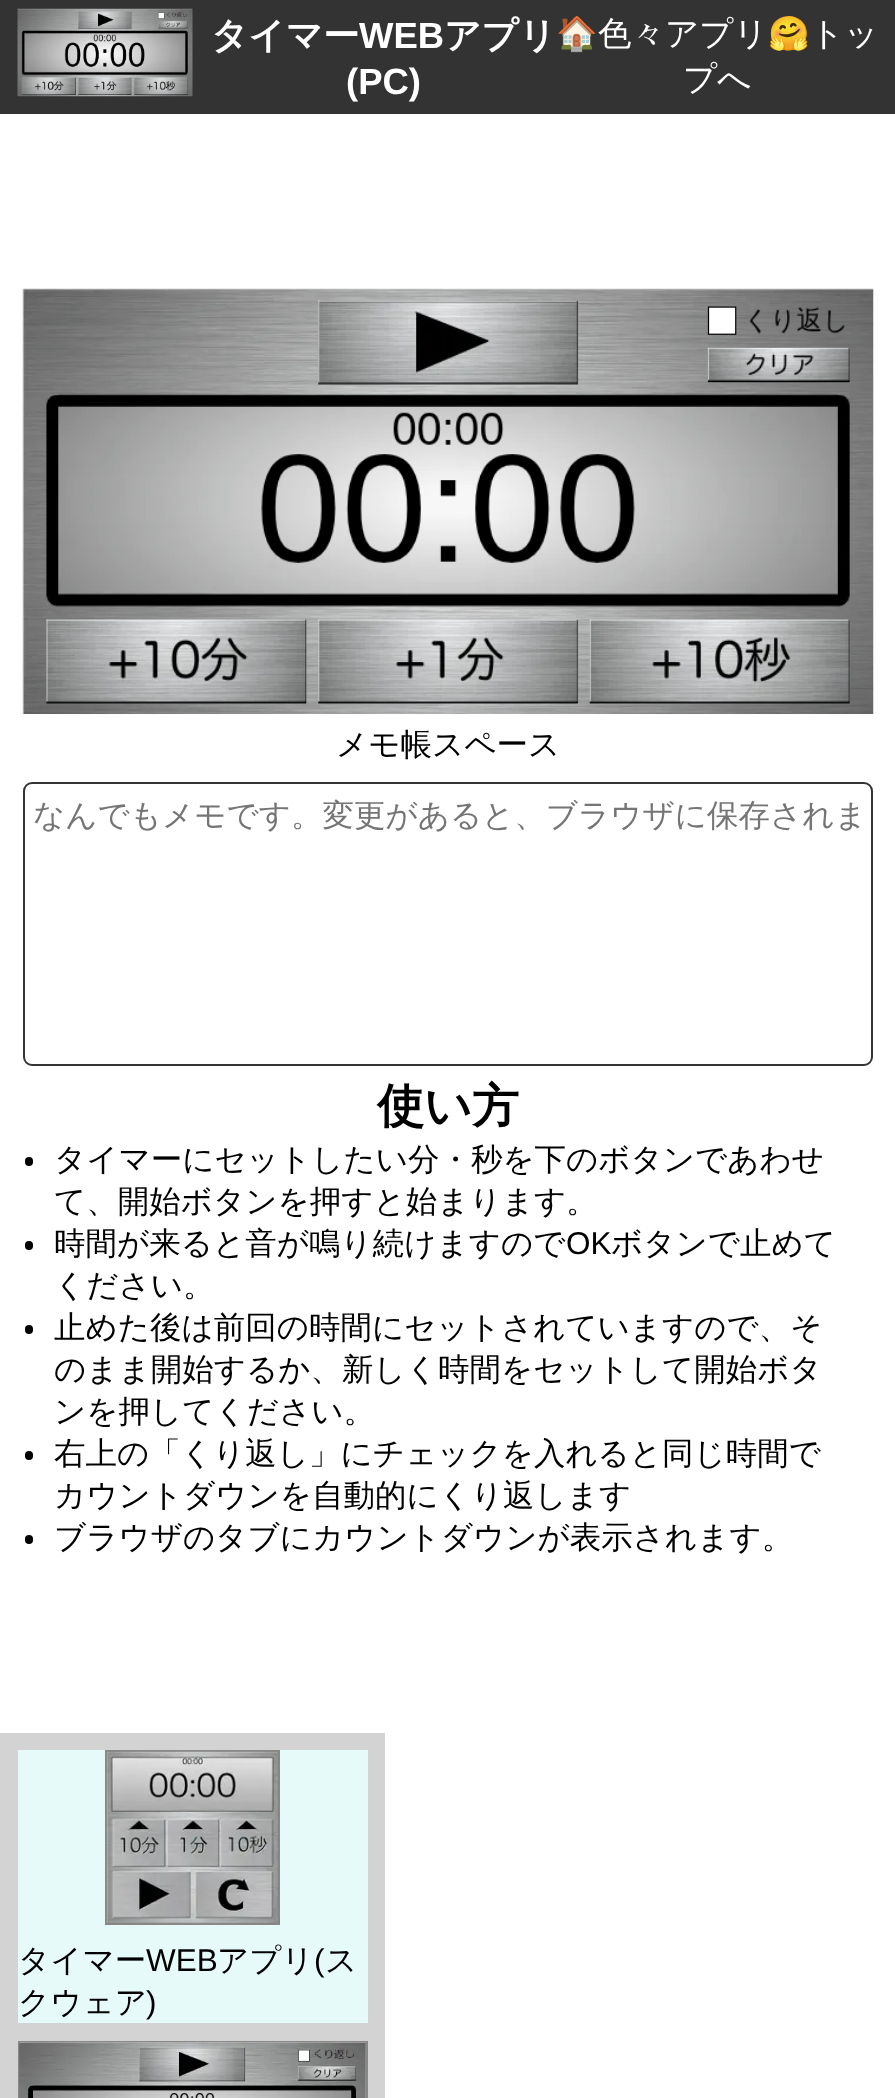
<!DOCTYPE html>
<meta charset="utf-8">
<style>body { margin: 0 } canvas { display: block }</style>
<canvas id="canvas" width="895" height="2098"></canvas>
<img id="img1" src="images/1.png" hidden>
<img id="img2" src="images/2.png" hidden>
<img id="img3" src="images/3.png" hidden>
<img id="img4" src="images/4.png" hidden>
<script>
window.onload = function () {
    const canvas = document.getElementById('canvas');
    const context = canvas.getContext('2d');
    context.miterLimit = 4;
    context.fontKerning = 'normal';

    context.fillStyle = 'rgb(255, 255, 255)';
    context.fillRect(0, 0, 895, 2098);
    context.fillStyle = 'rgb(51, 51, 51)';
    context.fillRect(0, 0, 895, 114);
    context.drawImage(document.getElementById('img1'), 17, 8, 176, 89);
    context.drawImage(document.getElementById('img2'), 22, 288, 852, 426);
    context.beginPath();
    context.roundRect(24, 783, 848, 282, 8);
    context.strokeStyle = 'rgb(53, 52, 52)';
    context.lineWidth = 2;
    context.stroke();
    context.fillStyle = 'rgb(0, 0, 0)';
    context.beginPath();
    context.roundRect(25, 1157, 8, 9, 4);
    context.fill();
    context.beginPath();
    context.roundRect(25, 1241, 8, 9, 4);
    context.fill();
    context.beginPath();
    context.roundRect(25, 1325, 8, 9, 4);
    context.fill();
    context.beginPath();
    context.roundRect(25, 1451, 8, 9, 4);
    context.fill();
    context.beginPath();
    context.roundRect(25, 1535, 8, 9, 4);
    context.fill();
    context.fillStyle = 'rgb(211, 211, 211)';
    context.fillRect(0, 1733, 385, 365);
    context.fillStyle = 'rgb(230, 250, 250)';
    context.fillRect(18, 1750, 350, 273);
    context.strokeStyle = 'rgb(138, 135, 135)';
    context.strokeRect(106, 1751, 173, 173);
    context.drawImage(document.getElementById('img3'), 106, 1751, 173, 173);
    context.strokeRect(19, 2042, 348, 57);
    context.drawImage(document.getElementById('img4'), 19, 2042, 347, 56);
    context.font = 'bold 36.5px WenQuanYi Zen Hei';
    context.fillStyle = 'rgb(255, 255, 255)';
    context.fillText('タイマー', 211, 48);
    context.font = 'bold 36.5px Liberation Sans';
    context.fillText('WEB', 359, 48);
    context.font = 'bold 36.5px WenQuanYi Zen Hei';
    context.fillText('アプリ', 444, 48);
    context.font = 'bold 36.5px Liberation Sans';
    context.fillText('(PC)', 346, 94);
    context.font = '33.5px Noto Color Emoji';
    context.fillText('🏠', 556, 45);
    context.font = '500 33.5px WenQuanYi Zen Hei';
    context.fillText('色々アプリ', 598, 45);
    context.font = '33.5px Noto Color Emoji';
    context.fillText('🤗', 768, 45);
    context.font = '500 33.5px WenQuanYi Zen Hei';
    context.fillText('トッ', 810, 45);
    context.fillText('プへ', 683, 90);
    context.font = '500 31.5px WenQuanYi Zen Hei';
    context.fillStyle = 'rgb(0, 0, 0)';
    context.fillText('メモ帳スペース', 336, 755);
    context.fillStyle = 'rgb(117, 117, 117)';
    context.fillText('なんでもメモです。変更があると、ブラウザに保存されま', 33, 826);
    context.font = 'bold 47px WenQuanYi Zen Hei';
    context.fillStyle = 'rgb(0, 0, 0)';
    context.fillText('使い方', 377, 1122);
    context.font = '500 31.5px WenQuanYi Zen Hei';
    context.fillText('タイマーにセットしたい分・秒を下のボタンであわせ', 54, 1170);
    context.fillText('て、開始ボタンを押すと始まります。', 54, 1212);
    context.fillText('時間が来ると音が鳴り続けますので', 54, 1254);
    context.font = '31.5px Liberation Sans';
    context.fillText('OK', 566, 1254);
    context.font = '500 31.5px WenQuanYi Zen Hei';
    context.fillText('ボタンで止めて', 611, 1254);
    context.fillText('ください。', 54, 1296);
    context.fillText('止めた後は前回の時間にセットされていますので、そ', 54, 1338);
    context.fillText('のまま開始するか、新しく時間をセットして開始ボタ', 54, 1380);
    context.fillText('ンを押してください。', 54, 1422);
    context.fillText('右上の「くり返し」にチェックを入れると同じ時間で', 54, 1464);
    context.fillText('カウントダウンを自動的にくり返します', 54, 1506);
    context.fillText('ブラウザのタブにカウントダウンが表示されます。', 54, 1548);
    context.fillText('タイマー', 18, 1971);
    context.font = '31.5px Liberation Sans';
    context.fillText('WEB', 146, 1971);
    context.font = '500 31.5px WenQuanYi Zen Hei';
    context.fillText('アプリ', 217, 1971);
    context.font = '31.5px Liberation Sans';
    context.fillText('(', 314, 1971);
    context.font = '500 31.5px WenQuanYi Zen Hei';
    context.fillText('ス', 325, 1971);
    context.fillText('クウェア', 18, 2013);
    context.font = '31.5px Liberation Sans';
    context.fillText(')', 146, 2013);
};
</script>
